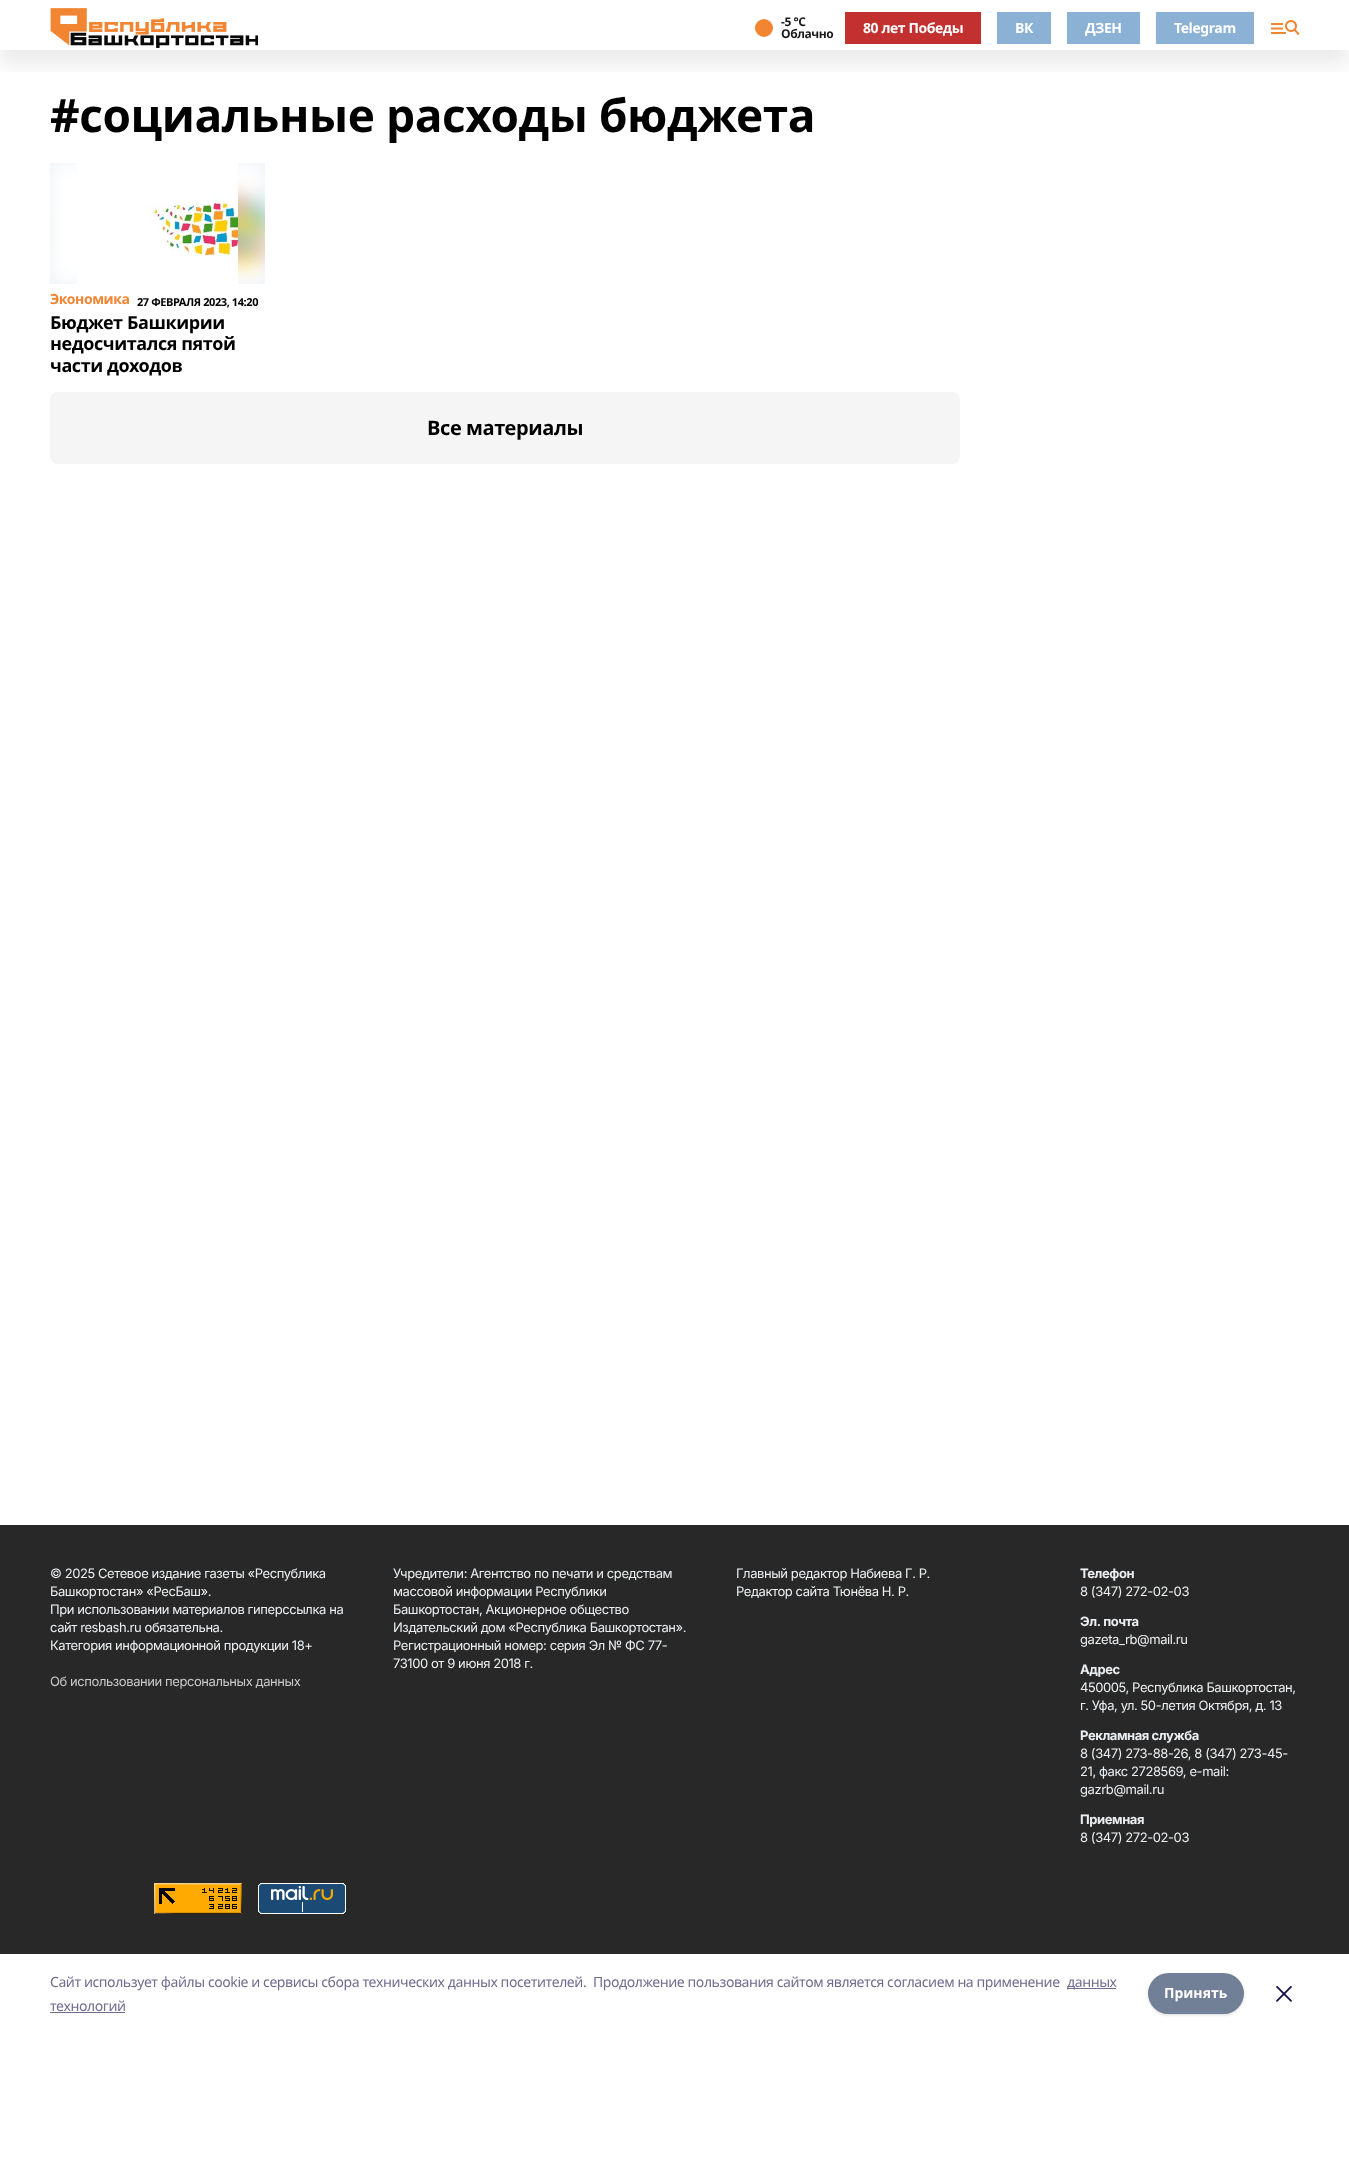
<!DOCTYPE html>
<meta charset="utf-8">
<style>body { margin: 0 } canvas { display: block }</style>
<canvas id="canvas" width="1349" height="2159"></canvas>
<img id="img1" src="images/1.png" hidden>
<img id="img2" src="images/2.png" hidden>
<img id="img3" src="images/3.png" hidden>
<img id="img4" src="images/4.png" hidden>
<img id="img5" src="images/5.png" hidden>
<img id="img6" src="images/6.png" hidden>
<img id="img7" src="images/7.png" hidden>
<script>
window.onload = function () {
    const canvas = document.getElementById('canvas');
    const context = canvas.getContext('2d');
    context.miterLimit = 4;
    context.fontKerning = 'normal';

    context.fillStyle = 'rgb(255, 255, 255)';
    context.fillRect(0, 0, 1349, 2159);
    context.save();
    context.beginPath();
    context.rect(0, 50, 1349, 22);
    context.clip();
    context.fillStyle = 'rgba(0, 0, 0, 0.08)';
    context.filter = 'blur(10px)';
    context.beginPath();
    context.rect(0, 15, 1349, 50);
    context.fill();
    context.filter = 'none';
    context.restore();
    context.drawImage(document.getElementById('img1'), 50, 8, 208, 40);
    context.fillStyle = 'rgb(241, 133, 50)';
    context.beginPath();
    context.arc(764, 28, 9, 0, 2 * Math.PI);
    context.fill();
    context.fillStyle = 'rgb(194, 48, 48)';
    context.fillRect(845, 12, 136, 32);
    context.fillStyle = 'rgb(139, 177, 212)';
    context.fillRect(997, 12, 54, 32);
    context.fillRect(1067, 12, 73, 32);
    context.fillRect(1156, 12, 98, 32);
    context.drawImage(document.getElementById('img2'), 1271, 20, 29, 15);
    context.fillStyle = 'rgb(237, 242, 247)';
    context.fillRect(50, 163, 215, 121);
    context.drawImage(document.getElementById('img3'), 50, 163, 215, 121);
    context.drawImage(document.getElementById('img4'), 77, 163, 161, 121);
    context.fillStyle = 'rgb(245, 245, 245)';
    context.beginPath();
    context.roundRect(50, 392, 910, 72, 8);
    context.fill();
    context.fillStyle = 'rgb(40, 40, 40)';
    context.fillRect(0, 1525, 1349, 429);
    context.drawImage(document.getElementById('img5'), 154, 1883, 88, 31);
    context.drawImage(document.getElementById('img6'), 258, 1883, 88, 31);
    context.fillStyle = 'rgb(111, 108, 144)';
    context.fillRect(1067, 1988, 49, 1);
    context.fillRect(50, 2012, 75, 1);
    context.fillStyle = 'rgba(0, 0, 0, 0.06)';
    context.filter = 'blur(1px)';
    context.beginPath();
    context.roundRect(1148, 1974, 96, 41, 20.5);
    context.fill();
    context.filter = 'none';
    context.fillStyle = 'rgba(0, 0, 0, 0.1)';
    context.filter = 'blur(1.5px)';
    context.beginPath();
    context.roundRect(1148, 1974, 96, 41, 20.5);
    context.fill();
    context.filter = 'none';
    context.fillStyle = 'rgb(113, 128, 150)';
    context.beginPath();
    context.roundRect(1148, 1973, 96, 41, 20.5);
    context.fill();
    context.drawImage(document.getElementById('img7'), 1276, 1986, 16, 16);
    context.letterSpacing = '-0.42px';
    context.font = 'bold 12px Noto Sans';
    context.fillStyle = 'rgb(26, 26, 26)';
    context.fillText('-5 °С', 781, 26);
    context.fillText('Облачно', 781, 38);
    context.font = 'bold 14px Noto Sans';
    context.fillStyle = 'rgb(255, 255, 255)';
    context.fillText('80 лет Победы', 863, 33);
    context.fillText('ВК', 1015, 33);
    context.fillText('ДЗЕН', 1085, 33);
    context.fillText('Telegram', 1174, 33);
    context.font = 'bold 46px Noto Sans';
    context.fillStyle = 'rgb(0, 0, 0)';
    context.fillText('#социальные расходы бюджета', 50, 132);
    context.font = 'bold 14px Noto Sans';
    context.fillStyle = 'rgb(241, 133, 50)';
    context.fillText('Экономика', 50, 304);
    context.font = 'bold 11px Noto Sans';
    context.fillStyle = 'rgb(0, 0, 0)';
    context.fillText('27 ФЕВРАЛЯ 2023, 14:20', 137, 306);
    context.font = 'bold 18px Noto Sans';
    context.fillText('Бюджет Башкирии', 50, 329);
    context.fillText('недосчитался пятой', 50, 350);
    context.fillText('части доходов', 50, 372);
    context.font = 'bold 20px Noto Sans';
    context.fillText('Все материалы', 427, 435);
    context.font = '13px Inter';
    context.fillStyle = 'rgb(236, 239, 241)';
    context.fillText('© 2025 Сетевое издание газеты «Республика', 50, 1578);
    context.fillText('Башкортостан» «РесБаш».', 50, 1596);
    context.fillText('При использовании материалов гиперссылка на', 50, 1614);
    context.fillText('сайт resbash.ru обязательна.', 50, 1632);
    context.fillText('Категория информационной продукции 18+', 50, 1650);
    context.fillStyle = 'rgb(201, 201, 201)';
    context.fillText('Об использовании персональных данных', 50, 1686);
    context.fillStyle = 'rgb(236, 239, 241)';
    context.fillText('Учредители: Агентство по печати и средствам', 393, 1578);
    context.fillText('массовой информации Республики', 393, 1596);
    context.fillText('Башкортостан, Акционерное общество', 393, 1614);
    context.fillText('Издательский дом «Республика Башкортостан».', 393, 1632);
    context.fillText('Регистрационный номер: серия Эл № ФС 77-', 393, 1650);
    context.fillText('73100 от 9 июня 2018 г.', 393, 1668);
    context.fillText('Главный редактор Набиева Г. Р.', 736, 1578);
    context.fillText('Редактор сайта Тюнёва Н. Р.', 736, 1596);
    context.font = 'bold 13px Inter';
    context.fillText('Телефон', 1080, 1578);
    context.font = '13px Inter';
    context.fillText('8 (347) 272-02-03', 1080, 1596);
    context.font = 'bold 13px Inter';
    context.fillText('Эл. почта', 1080, 1626);
    context.font = '13px Inter';
    context.fillText('gazeta_rb@mail.ru', 1080, 1644);
    context.font = 'bold 13px Inter';
    context.fillText('Адрес', 1080, 1674);
    context.font = '13px Inter';
    context.fillText('450005, Республика Башкортостан,', 1080, 1692);
    context.fillText('г. Уфа, ул. 50-летия Октября, д. 13', 1080, 1710);
    context.font = 'bold 13px Inter';
    context.fillText('Рекламная служба', 1080, 1740);
    context.font = '13px Inter';
    context.fillText('8 (347) 273-88-26, 8 (347) 273-45-', 1080, 1758);
    context.fillText('21, факс 2728569, e-mail:', 1080, 1776);
    context.fillText('gazrb@mail.ru', 1080, 1794);
    context.font = 'bold 13px Inter';
    context.fillText('Приемная', 1080, 1824);
    context.font = '13px Inter';
    context.fillText('8 (347) 272-02-03', 1080, 1842);
    context.font = '14px Noto Sans';
    context.fillStyle = 'rgb(111, 108, 144)';
    context.fillText('Cайт использует файлы cookie и сервисы сбора технических данных посетителей.', 50, 1987);
    context.fillText('Продолжение пользования сайтом является согласием на применение', 593, 1987);
    context.fillText('данных', 1067, 1987);
    context.fillText('технологий', 50, 2011);
    context.letterSpacing = '0px';
    context.font = 'bold 14px Noto Sans';
    context.fillStyle = 'rgb(255, 255, 255)';
    context.fillText('Принять', 1164, 1998);
};
</script>
